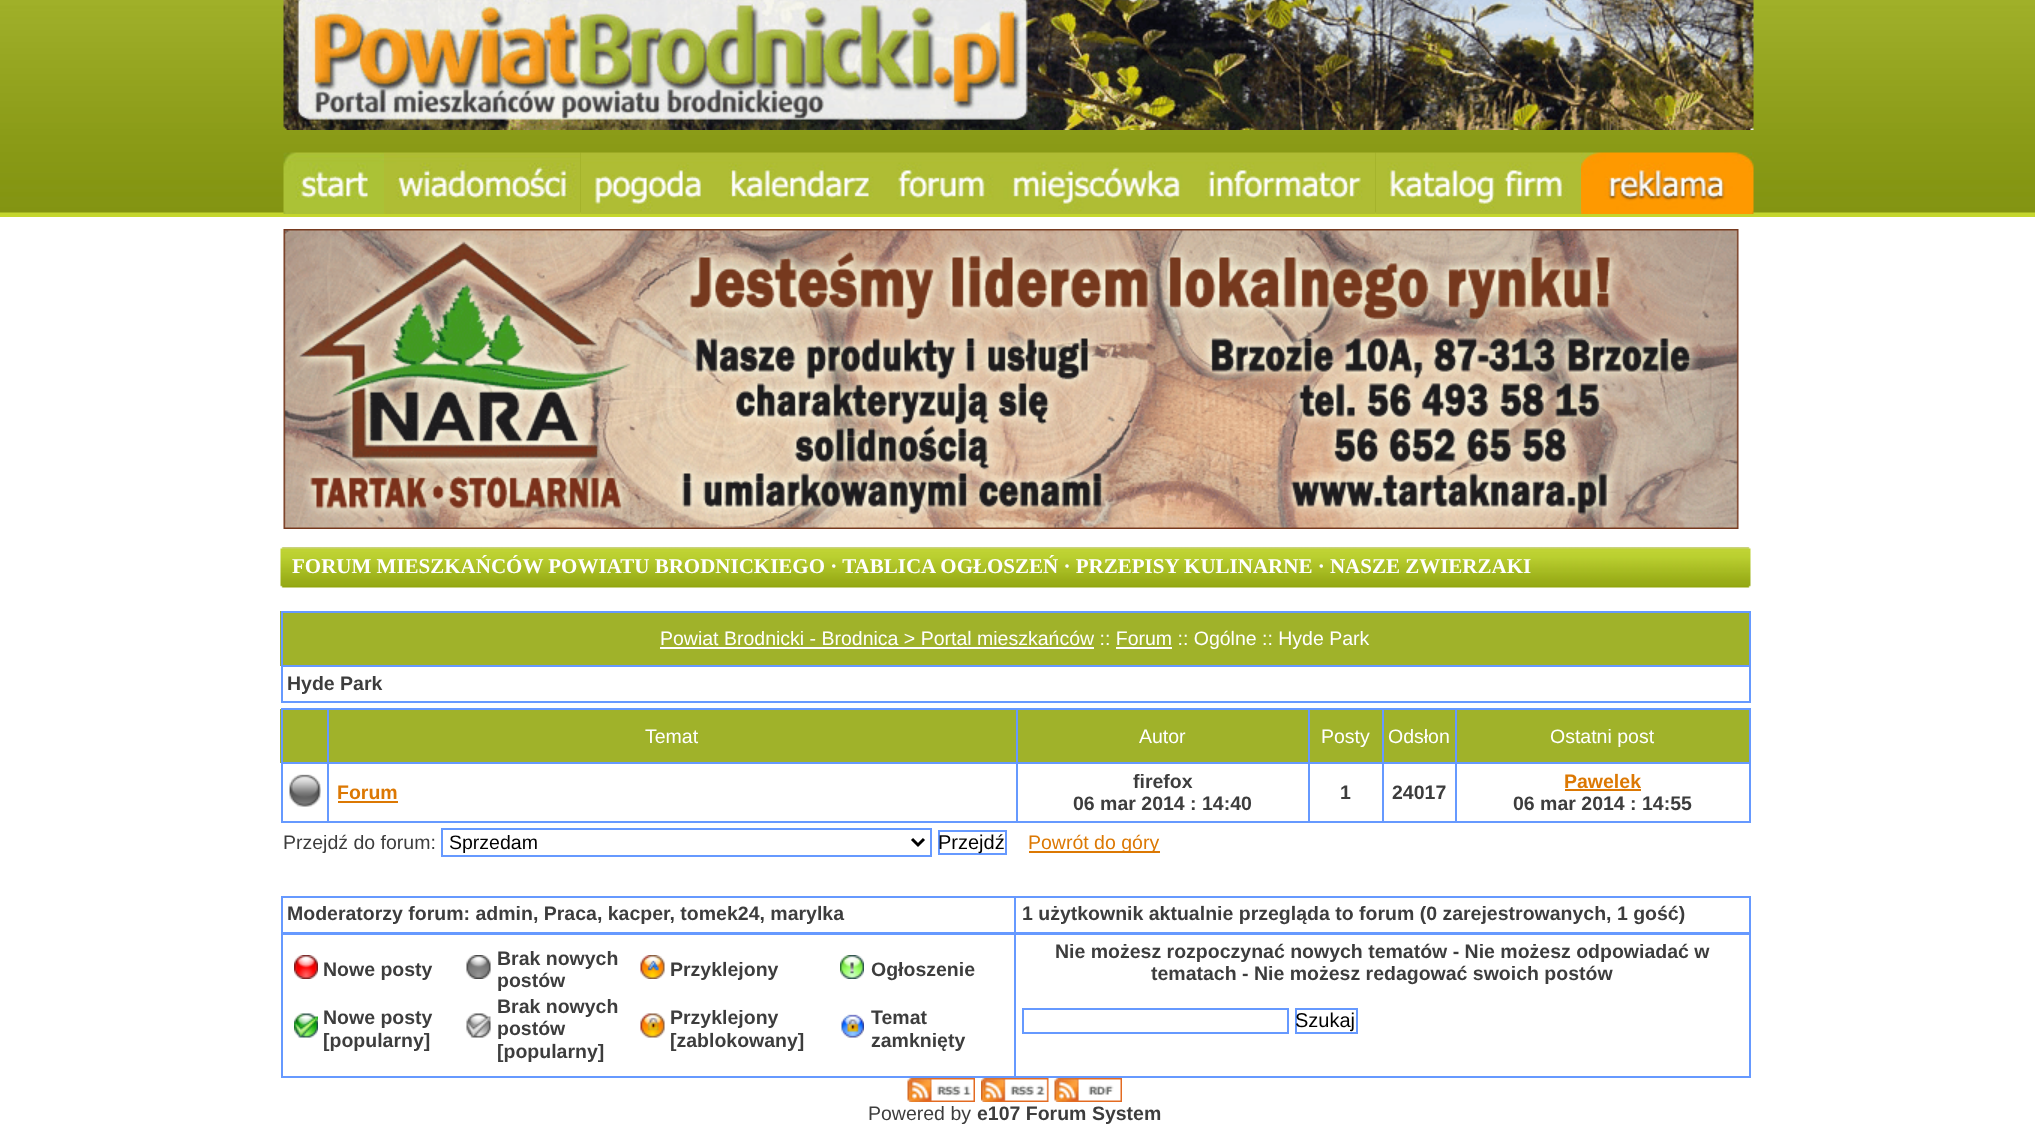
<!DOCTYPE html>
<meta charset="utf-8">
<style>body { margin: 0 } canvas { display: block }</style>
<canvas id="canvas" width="2035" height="1147"></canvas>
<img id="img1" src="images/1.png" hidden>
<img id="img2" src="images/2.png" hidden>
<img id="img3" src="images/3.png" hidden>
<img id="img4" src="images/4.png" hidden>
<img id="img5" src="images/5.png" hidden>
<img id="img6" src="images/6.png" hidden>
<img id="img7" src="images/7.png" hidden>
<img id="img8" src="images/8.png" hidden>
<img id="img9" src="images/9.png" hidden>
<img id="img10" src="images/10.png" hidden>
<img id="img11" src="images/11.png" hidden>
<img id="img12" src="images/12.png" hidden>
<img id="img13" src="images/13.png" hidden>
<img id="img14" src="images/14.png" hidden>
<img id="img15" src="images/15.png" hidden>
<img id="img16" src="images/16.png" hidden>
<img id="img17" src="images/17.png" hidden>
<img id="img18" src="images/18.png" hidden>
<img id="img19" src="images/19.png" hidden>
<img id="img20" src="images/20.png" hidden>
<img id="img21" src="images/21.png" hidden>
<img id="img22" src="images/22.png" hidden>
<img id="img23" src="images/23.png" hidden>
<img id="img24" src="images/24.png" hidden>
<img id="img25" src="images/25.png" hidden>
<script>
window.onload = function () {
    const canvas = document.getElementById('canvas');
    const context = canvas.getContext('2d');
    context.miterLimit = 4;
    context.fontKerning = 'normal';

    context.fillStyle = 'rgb(255, 255, 255)';
    context.fillRect(0, 0, 2035, 1147);
    context.drawImage(document.getElementById('img1'), 0, 0, 2035, 217);
    context.drawImage(document.getElementById('img2'), 283, 0, 1471, 130);
    context.drawImage(document.getElementById('img3'), 283, 152, 101, 62);
    context.drawImage(document.getElementById('img4'), 384, 152, 197, 62);
    context.drawImage(document.getElementById('img5'), 580, 152, 137, 62);
    context.drawImage(document.getElementById('img6'), 717, 152, 168, 62);
    context.drawImage(document.getElementById('img7'), 885, 152, 114, 62);
    context.drawImage(document.getElementById('img8'), 999, 152, 195, 62);
    context.drawImage(document.getElementById('img9'), 1194, 152, 182, 62);
    context.drawImage(document.getElementById('img10'), 1375, 152, 206, 62);
    context.drawImage(document.getElementById('img11'), 1581, 152, 173, 62);
    context.drawImage(document.getElementById('img12'), 283, 229, 1456, 300);
    context.drawImage(document.getElementById('img13'), 280, 547, 1471, 41);
    context.fillStyle = 'rgb(160, 178, 42)';
    context.fillRect(280, 611, 1469, 55);
    context.fillStyle = 'rgb(102, 153, 255)';
    context.fillRect(281, 611, 1470, 2);
    context.fillRect(281, 665, 1470, 2);
    context.fillRect(1749, 665, 2, 37);
    context.fillRect(1749, 611, 2, 55);
    context.fillRect(281, 701, 1470, 2);
    context.fillRect(281, 665, 2, 37);
    context.fillRect(281, 611, 2, 55);
    context.fillStyle = 'rgb(255, 255, 255)';
    context.fillRect(660, 647, 434, 2);
    context.fillRect(1116, 647, 56, 2);
    context.fillStyle = 'rgb(160, 178, 42)';
    context.fillRect(280, 709, 47, 54);
    context.fillStyle = 'rgb(102, 153, 255)';
    context.fillRect(1455, 708, 296, 2);
    context.fillRect(1455, 762, 296, 2);
    context.fillRect(1749, 762, 2, 60);
    context.fillRect(1455, 821, 296, 2);
    context.fillRect(1455, 762, 2, 60);
    context.fillRect(1382, 762, 75, 2);
    context.fillRect(1455, 708, 2, 56);
    context.fillRect(1382, 708, 75, 2);
    context.fillRect(1382, 821, 75, 2);
    context.fillRect(1382, 762, 2, 60);
    context.fillRect(1308, 762, 75, 2);
    context.fillRect(1382, 708, 2, 56);
    context.fillRect(1308, 708, 75, 2);
    context.fillRect(1308, 821, 75, 2);
    context.fillRect(1308, 762, 2, 60);
    context.fillRect(1016, 762, 294, 2);
    context.fillRect(1308, 708, 2, 56);
    context.fillRect(1016, 708, 294, 2);
    context.fillRect(1016, 821, 294, 2);
    context.fillRect(1016, 762, 2, 60);
    context.fillRect(327, 762, 690, 2);
    context.fillRect(1016, 708, 2, 56);
    context.fillRect(327, 708, 690, 2);
    context.fillRect(327, 821, 690, 2);
    context.fillRect(327, 762, 2, 60);
    context.fillRect(281, 762, 48, 2);
    context.fillRect(327, 708, 2, 56);
    context.fillRect(281, 708, 48, 2);
    context.fillRect(281, 821, 48, 2);
    context.fillRect(281, 762, 2, 60);
    context.fillRect(281, 708, 2, 56);
    context.fillStyle = 'rgb(160, 178, 42)';
    context.fillRect(329, 710, 687, 52);
    context.fillRect(1018, 710, 290, 52);
    context.fillRect(1310, 710, 72, 52);
    context.fillRect(1384, 710, 71, 52);
    context.fillRect(1457, 710, 292, 52);
    context.fillStyle = 'rgb(102, 153, 255)';
    context.fillRect(1749, 708, 2, 56);
    context.drawImage(document.getElementById('img14'), 289, 774, 32, 33);
    context.fillStyle = 'rgb(220, 120, 3)';
    context.fillRect(338, 801, 60, 2);
    context.fillRect(1565, 789, 76, 2);
    context.strokeStyle = 'rgb(102, 153, 255)';
    context.lineWidth = 2;
    context.strokeRect(442, 829, 489, 27);
    context.beginPath();
    context.moveTo(912, 839);
    context.lineTo(918, 845);
    context.lineTo(924, 839);
    context.strokeStyle = 'rgb(0, 0, 0)';
    context.lineWidth = 3;
    context.stroke();
    context.strokeStyle = 'rgb(102, 153, 255)';
    context.lineWidth = 2;
    context.strokeRect(939, 831, 67, 23);
    context.fillRect(1029, 851, 131, 2);
    context.fillStyle = 'rgb(102, 153, 255)';
    context.fillRect(1014, 896, 737, 2);
    context.fillRect(1749, 896, 2, 37);
    context.fillRect(1014, 932, 737, 3);
    context.fillRect(1014, 896, 2, 37);
    context.fillRect(281, 896, 735, 2);
    context.fillRect(281, 932, 735, 1);
    context.fillRect(281, 896, 2, 37);
    context.fillRect(1749, 933, 2, 144);
    context.fillRect(1014, 1076, 737, 2);
    context.fillRect(1014, 933, 2, 144);
    context.fillRect(281, 933, 735, 2);
    context.fillRect(281, 1076, 735, 2);
    context.fillRect(281, 933, 2, 144);
    context.drawImage(document.getElementById('img15'), 294, 955, 24, 24);
    context.drawImage(document.getElementById('img16'), 466, 955, 25, 24);
    context.drawImage(document.getElementById('img17'), 640, 955, 25, 24);
    context.drawImage(document.getElementById('img18'), 840, 955, 24, 24);
    context.drawImage(document.getElementById('img19'), 294, 1013, 24, 25);
    context.drawImage(document.getElementById('img20'), 466, 1013, 25, 25);
    context.drawImage(document.getElementById('img21'), 640, 1013, 25, 25);
    context.drawImage(document.getElementById('img22'), 841, 1014, 23, 24);
    context.strokeRect(1023, 1009, 265, 24);
    context.strokeRect(1296, 1009, 61, 24);
    context.drawImage(document.getElementById('img23'), 907, 1078, 68, 24);
    context.drawImage(document.getElementById('img24'), 981, 1078, 68, 24);
    context.drawImage(document.getElementById('img25'), 1054, 1078, 68, 24);
    context.font = 'bold 21px Liberation Serif';
    context.fillStyle = 'rgb(255, 255, 255)';
    context.fillText('FORUM MIESZKAŃCÓW POWIATU BRODNICKIEGO · TABLICA OGŁOSZEŃ · PRZEPISY KULINARNE · NASZE ZWIERZAKI', 292, 573);
    context.font = '19.5px Liberation Sans';
    context.fillText('Powiat Brodnicki - Brodnica > Portal mieszkańców :: Forum :: Ogólne :: Hyde Park', 660, 645);
    context.font = 'bold 19.5px Liberation Sans';
    context.fillStyle = 'rgb(61, 61, 61)';
    context.fillText('Hyde Park', 287, 690);
    context.font = '19.5px Liberation Sans';
    context.fillStyle = 'rgb(255, 255, 255)';
    context.fillText('Temat', 645, 743);
    context.fillText('Autor', 1139, 743);
    context.fillText('Posty', 1321, 743);
    context.fillText('Odsłon', 1388, 743);
    context.fillText('Ostatni post', 1550, 743);
    context.font = 'bold 19.5px Liberation Sans';
    context.fillStyle = 'rgb(220, 120, 3)';
    context.fillText('Forum', 337, 799);
    context.fillStyle = 'rgb(61, 61, 61)';
    context.fillText('firefox', 1133, 788);
    context.fillText('06 mar 2014 : 14:40', 1073, 810);
    context.fillText('1', 1340, 799);
    context.fillText('24017', 1392, 799);
    context.fillStyle = 'rgb(220, 120, 3)';
    context.fillText('Pawelek', 1564, 788);
    context.fillStyle = 'rgb(61, 61, 61)';
    context.fillText('06 mar 2014 : 14:55', 1513, 810);
    context.font = '19.5px Liberation Sans';
    context.fillText('Przejdź do forum:', 283, 849);
    context.fillStyle = 'rgb(0, 0, 0)';
    context.fillText('Sprzedam', 449, 849);
    context.font = '20px Liberation Sans';
    context.fillText('Przejdź', 938, 849);
    context.font = '19.5px Liberation Sans';
    context.fillStyle = 'rgb(220, 120, 3)';
    context.fillText('Powrót do góry', 1028, 849);
    context.font = 'bold 19.5px Liberation Sans';
    context.fillStyle = 'rgb(61, 61, 61)';
    context.fillText('Moderatorzy forum: admin, Praca, kacper, tomek24, marylka', 287, 920);
    context.fillText('1 użytkownik aktualnie przegląda to forum (0 zarejestrowanych, 1 gość)', 1022, 920);
    context.fillText('Nowe posty', 323, 976);
    context.fillText('Brak nowych', 497, 965);
    context.fillText('postów', 497, 987);
    context.fillText('Przyklejony', 670, 976);
    context.fillText('Ogłoszenie', 871, 976);
    context.fillText('Nowe posty', 323, 1024);
    context.fillText('[popularny]', 323, 1047);
    context.fillText('Brak nowych', 497, 1013);
    context.fillText('postów', 497, 1035);
    context.fillText('[popularny]', 497, 1058);
    context.fillText('Przyklejony', 670, 1024);
    context.fillText('[zablokowany]', 670, 1047);
    context.fillText('Temat', 871, 1024);
    context.fillText('zamknięty', 871, 1047);
    context.fillText('Nie możesz rozpoczynać nowych tematów - Nie możesz odpowiadać w', 1055, 958);
    context.fillText('tematach - Nie możesz redagować swoich postów', 1151, 980);
    context.font = '20px Liberation Sans';
    context.fillStyle = 'rgb(0, 0, 0)';
    context.fillText('Szukaj', 1295, 1027);
    context.font = '19.5px Liberation Sans';
    context.fillStyle = 'rgb(61, 61, 61)';
    context.fillText('Powered by', 868, 1120);
    context.font = 'bold 19.5px Liberation Sans';
    context.fillText('e107 Forum System', 977, 1120);
};
</script>
